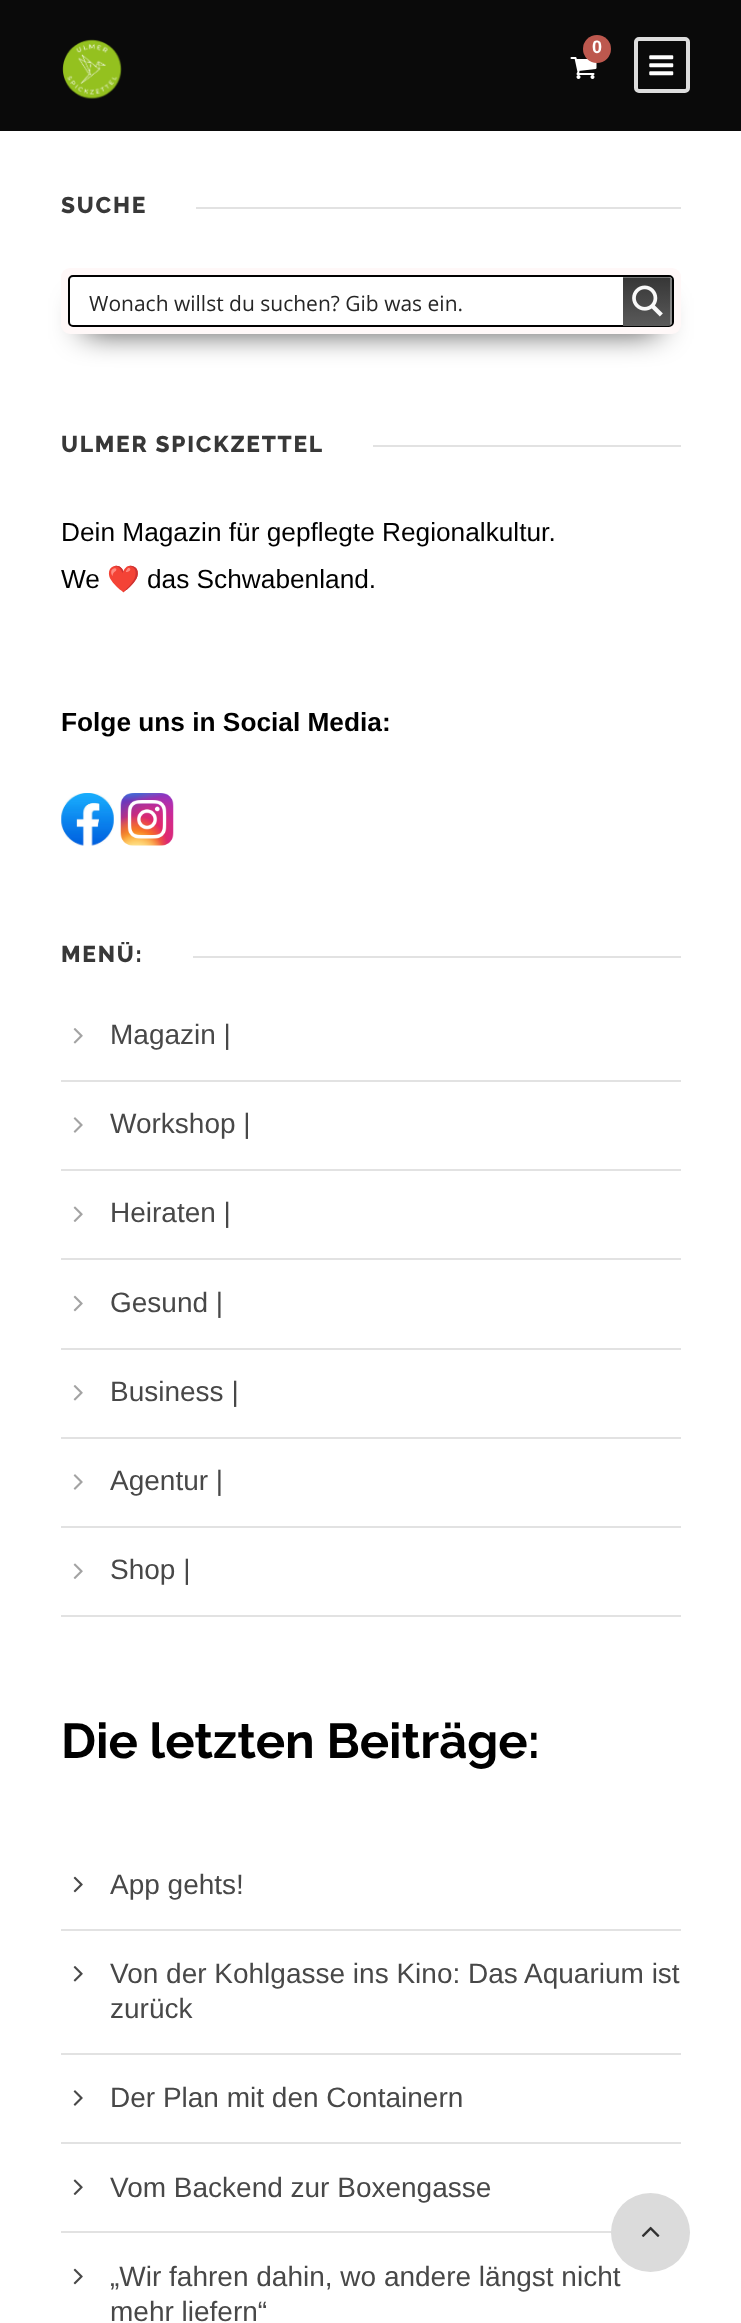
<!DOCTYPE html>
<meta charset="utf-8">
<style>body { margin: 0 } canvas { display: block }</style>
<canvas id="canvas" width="741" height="2323"></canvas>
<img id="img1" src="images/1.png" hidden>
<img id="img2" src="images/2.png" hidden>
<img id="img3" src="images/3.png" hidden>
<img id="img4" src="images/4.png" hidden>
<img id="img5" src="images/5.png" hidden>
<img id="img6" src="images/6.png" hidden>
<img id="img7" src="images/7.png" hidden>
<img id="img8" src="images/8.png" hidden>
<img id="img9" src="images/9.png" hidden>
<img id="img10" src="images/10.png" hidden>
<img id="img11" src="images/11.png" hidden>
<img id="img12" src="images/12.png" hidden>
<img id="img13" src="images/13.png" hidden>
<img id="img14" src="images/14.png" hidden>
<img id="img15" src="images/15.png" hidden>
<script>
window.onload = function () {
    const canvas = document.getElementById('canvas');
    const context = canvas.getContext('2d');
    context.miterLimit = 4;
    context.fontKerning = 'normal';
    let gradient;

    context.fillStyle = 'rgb(255, 255, 255)';
    context.fillRect(0, 0, 741, 2323);
    context.fillStyle = 'rgb(10, 10, 10)';
    context.fillRect(0, 0, 741, 131);
    context.drawImage(document.getElementById('img1'), 62, 39, 60, 60);
    context.drawImage(document.getElementById('img2'), 570, 57, 27, 22);
    context.fillStyle = 'rgb(189, 88, 78)';
    context.beginPath();
    context.arc(597, 49, 14, 0, 2 * Math.PI);
    context.fill();
    context.beginPath();
    context.roundRect(636, 39, 52, 52, 3);
    context.strokeStyle = 'rgb(221, 221, 221)';
    context.lineWidth = 4;
    context.stroke();
    context.drawImage(document.getElementById('img3'), 649, 55, 25, 21);
    context.fillStyle = 'rgb(226, 226, 226)';
    context.fillRect(196, 207, 485, 2);
    context.fillStyle = 'rgb(0, 0, 0)';
    context.filter = 'blur(16px)';
    context.beginPath();
    context.rect(84, 308, 574, 21);
    context.fill();
    context.filter = 'none';
    context.fillStyle = 'rgb(255, 248, 248)';
    context.beginPath();
    context.roundRect(61, 268, 620, 66, 9);
    context.fill();
    context.fillStyle = 'rgb(255, 255, 255)';
    context.beginPath();
    context.roundRect(69, 276, 604, 50, 4);
    context.fill();
    context.strokeStyle = 'rgb(0, 0, 0)';
    context.lineWidth = 2;
    context.stroke();
    gradient = context.createLinearGradient(648, 277, 648, 326);
    gradient.addColorStop(0, 'rgb(54, 54, 54)');
    gradient.addColorStop(1, 'rgb(90, 90, 90)');
    context.fillStyle = gradient;
    context.beginPath();
    context.roundRect(623, 277, 49, 49, [0, 4, 4, 0]);
    context.fill();
    context.save();
    context.beginPath();
    context.rect(623, 277, 49, 49);
    context.clip();
    context.fillStyle = 'rgba(255, 255, 255, 0.33)';
    context.beginPath();
    context.moveTo(621, 278);
    context.lineTo(621, 326);
    context.lineTo(450, 326);
    context.lineTo(450, 277);
    context.lineTo(668, 277);
    context.bezierCurveTo(670, 277, 672, 279, 672, 281);
    context.lineTo(672, 322);
    context.bezierCurveTo(672, 323, 671, 325, 670, 325);
    context.lineTo(670, 278);
    context.closePath();
    context.fill();
    context.restore();
    context.drawImage(document.getElementById('img4'), 632, 285, 31, 32);
    context.fillStyle = 'rgb(226, 226, 226)';
    context.fillRect(373, 445, 308, 2);
    context.drawImage(document.getElementById('img5'), 61, 793, 53, 53);
    context.drawImage(document.getElementById('img6'), 120, 793, 54, 53);
    context.fillRect(193, 956, 488, 2);
    context.fillRect(61, 1080, 620, 2);
    context.drawImage(document.getElementById('img7'), 73, 1028, 10, 16);
    context.fillRect(61, 1169, 620, 2);
    context.drawImage(document.getElementById('img8'), 73, 1117, 10, 16);
    context.fillRect(61, 1258, 620, 2);
    context.drawImage(document.getElementById('img9'), 73, 1206, 10, 16);
    context.fillRect(61, 1348, 620, 2);
    context.drawImage(document.getElementById('img10'), 73, 1295, 10, 17);
    context.fillRect(61, 1437, 620, 2);
    context.drawImage(document.getElementById('img7'), 73, 1385, 10, 16);
    context.fillRect(61, 1526, 620, 2);
    context.drawImage(document.getElementById('img8'), 73, 1474, 10, 16);
    context.fillRect(61, 1615, 620, 2);
    context.drawImage(document.getElementById('img9'), 73, 1563, 10, 16);
    context.fillRect(61, 1929, 620, 2);
    context.drawImage(document.getElementById('img11'), 73, 1876, 10, 17);
    context.fillRect(61, 2053, 620, 2);
    context.drawImage(document.getElementById('img12'), 73, 1966, 10, 16);
    context.fillRect(61, 2142, 620, 2);
    context.drawImage(document.getElementById('img13'), 73, 2090, 10, 16);
    context.fillRect(61, 2231, 551, 2);
    context.drawImage(document.getElementById('img14'), 73, 2179, 10, 16);
    context.drawImage(document.getElementById('img11'), 73, 2268, 10, 17);
    context.font = 'bold 18px Liberation Sans';
    context.fillStyle = 'rgb(255, 255, 255)';
    context.fillText('0', 592, 53);
    context.letterSpacing = '1.75px';
    context.font = '800 22.75px Raleway';
    context.fillStyle = 'rgb(56, 56, 56)';
    context.fillText('SUCHE', 61, 213);
    context.letterSpacing = '0px';
    context.font = '21px Open Sans';
    context.fillStyle = 'rgb(38, 38, 38)';
    context.fillText('Wonach willst du suchen? Gib was ein.', 89, 311);
    context.letterSpacing = '1.75px';
    context.font = '800 22.75px Raleway';
    context.fillStyle = 'rgb(56, 56, 56)';
    context.fillText('ULMER SPICKZETTEL', 61, 452);
    context.letterSpacing = '0px';
    context.font = '26.25px Liberation Sans';
    context.fillStyle = 'rgb(0, 0, 0)';
    context.fillText('Dein Magazin für gepflegte Regionalkultur.', 61, 541);
    context.fillText('We', 61, 588);
    context.font = '26.25px Noto Color Emoji';
    context.fillText('❤️', 107, 588);
    context.font = '26.25px Liberation Sans';
    context.fillText('das Schwabenland.', 147, 588);
    context.font = 'bold 26.25px Liberation Sans';
    context.fillText('Folge uns in Social Media:', 61, 731);
    context.save();
    context.beginPath();
    context.rect(61, 942, 620, 28);
    context.clip();
    context.letterSpacing = '1.75px';
    context.font = '800 22.75px Raleway';
    context.fillStyle = 'rgb(56, 56, 56)';
    context.fillText('MENÜ:', 61, 962);
    context.restore();
    context.font = '28px Liberation Sans';
    context.fillStyle = 'rgb(72, 72, 72)';
    context.fillText('Magazin |', 110, 1044);
    context.fillText('Workshop |', 110, 1133);
    context.fillText('Heiraten |', 110, 1222);
    context.fillText('Gesund |', 110, 1312);
    context.fillText('Business |', 110, 1401);
    context.fillText('Agentur |', 110, 1490);
    context.fillText('Shop |', 110, 1579);
    context.font = 'bold 49px Raleway';
    context.fillStyle = 'rgb(0, 0, 0)';
    context.fillText('Die letzten Beiträge:', 61, 1758);
    context.font = '28px Liberation Sans';
    context.fillStyle = 'rgb(72, 72, 72)';
    context.fillText('App gehts!', 110, 1894);
    context.fillText('Von der Kohlgasse ins Kino: Das Aquarium ist', 110, 1983);
    context.fillText('zurück', 110, 2018);
    context.fillText('Der Plan mit den Containern', 110, 2107);
    context.fillText('Vom Backend zur Boxengasse', 110, 2197);
    context.fillText('„Wir fahren dahin, wo andere längst nicht', 110, 2286);
    context.fillText('mehr liefern“', 110, 2321);
    context.fillStyle = 'rgb(219, 219, 219)';
    context.beginPath();
    context.arc(650.5, 2232.5, 39.5, 0, 2 * Math.PI);
    context.fill();
    context.drawImage(document.getElementById('img15'), 641, 2226, 19, 11);
};
</script>
